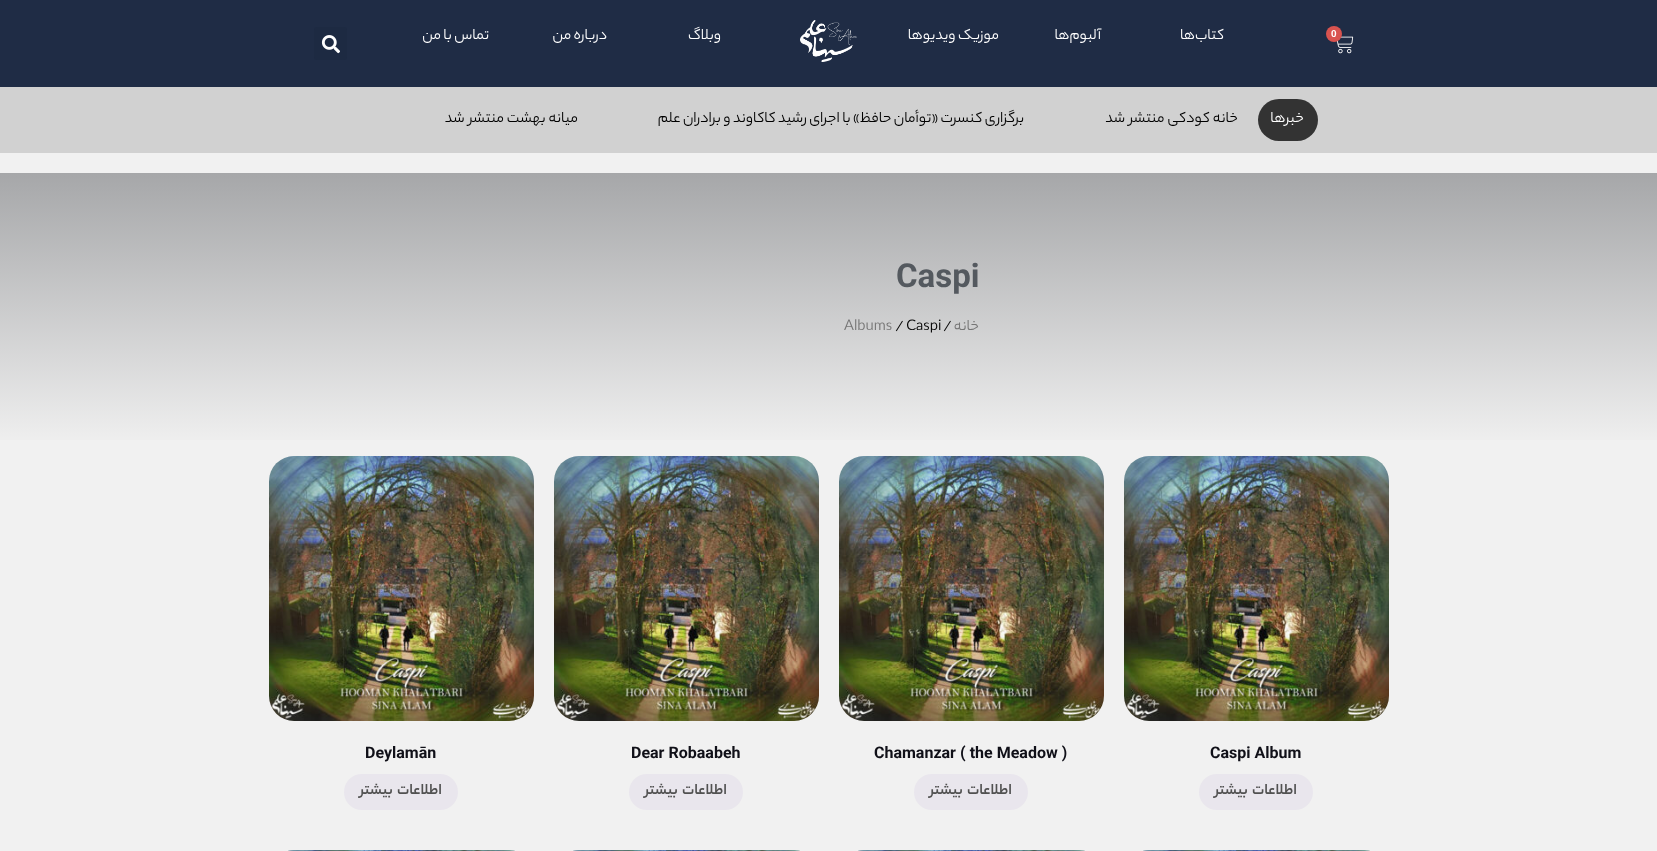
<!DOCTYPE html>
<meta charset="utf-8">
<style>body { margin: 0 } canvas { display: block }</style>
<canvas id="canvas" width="1657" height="851"></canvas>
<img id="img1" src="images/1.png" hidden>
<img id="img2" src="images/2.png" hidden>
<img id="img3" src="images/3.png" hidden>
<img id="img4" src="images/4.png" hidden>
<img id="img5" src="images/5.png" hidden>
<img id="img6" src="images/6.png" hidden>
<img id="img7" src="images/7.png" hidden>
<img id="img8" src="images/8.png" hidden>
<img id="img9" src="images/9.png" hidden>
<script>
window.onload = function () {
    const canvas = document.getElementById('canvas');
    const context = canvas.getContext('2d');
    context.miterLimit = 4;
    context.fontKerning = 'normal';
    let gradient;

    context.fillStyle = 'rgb(241, 241, 241)';
    context.fillRect(0, 0, 1657, 851);
    context.fillStyle = 'rgb(31, 44, 69)';
    context.fillRect(0, 0, 1657, 87);
    context.drawImage(document.getElementById('img1'), 1337, 36, 17, 18);
    context.fillStyle = 'rgb(217, 83, 79)';
    context.beginPath();
    context.arc(1334, 34, 8, 0, 2 * Math.PI);
    context.fill();
    context.drawImage(document.getElementById('img2'), 800, 20, 57, 42);
    context.fillStyle = 'rgb(29, 42, 66)';
    context.beginPath();
    context.roundRect(314, 27, 33, 33, 3);
    context.fill();
    context.drawImage(document.getElementById('img3'), 321, 35, 19, 19);
    context.fillStyle = 'rgb(209, 209, 209)';
    context.fillRect(0, 87, 1657, 66);
    context.fillStyle = 'rgb(51, 51, 51)';
    context.beginPath();
    context.roundRect(1258, 99, 60, 42, 21);
    context.fill();
    gradient = context.createLinearGradient(829, 173, 829, 446);
    gradient.addColorStop(0, 'rgb(166, 167, 169)');
    gradient.addColorStop(1, 'rgb(240, 240, 240)');
    context.fillStyle = gradient;
    context.fillRect(0, 173, 1657, 267);
    context.drawImage(document.getElementById('img4'), 1124, 456, 265, 265);
    context.fillStyle = 'rgb(233, 230, 237)';
    context.beginPath();
    context.roundRect(1199, 774, 114, 36, 18);
    context.fill();
    context.drawImage(document.getElementById('img5'), 839, 456, 265, 265);
    context.beginPath();
    context.roundRect(914, 774, 114, 36, 18);
    context.fill();
    context.drawImage(document.getElementById('img6'), 554, 456, 265, 265);
    context.beginPath();
    context.roundRect(629, 774, 114, 36, 18);
    context.fill();
    context.drawImage(document.getElementById('img7'), 269, 456, 265, 265);
    context.beginPath();
    context.roundRect(344, 774, 114, 36, 18);
    context.fill();
    context.drawImage(document.getElementById('img8'), 1143, 850, 227, 1);
    context.drawImage(document.getElementById('img9'), 858, 850, 227, 1);
    context.drawImage(document.getElementById('img9'), 573, 850, 227, 1);
    context.drawImage(document.getElementById('img9'), 288, 850, 227, 1);
    context.font = 'bold 10px Liberation Sans';
    context.fillStyle = 'rgb(255, 255, 255)';
    context.fillText('0', 1331, 37);
    context.direction = 'rtl';
    context.font = '16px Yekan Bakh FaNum';
    context.fillText('کتاب', 1224, 39);
    context.fillText('‌ها', 1195, 39);
    context.fillText('آلبوم‌ها', 1101, 39);
    context.fillText('موزیک ویدیو‌ها', 999, 39);
    context.fillText('وبلاگ', 721, 39);
    context.fillText('درباره من', 607, 39);
    context.fillText('تماس با من', 489, 39);
    context.fillText('خبر‌ها', 1304, 122);
    context.wordSpacing = '0.5px';
    context.fillStyle = 'rgb(0, 0, 0)';
    context.fillText('خانه کودکی منتشر شد', 1238, 122);
    context.wordSpacing = '0px';
    context.fillText('برگزاری کنسرت «توأمان حافظ» با اجرای رشید کاکاوند و برادران علم', 1024, 122);
    context.wordSpacing = '0.5px';
    context.fillText('میانه بهشت منتشر شد', 578, 122);
    context.wordSpacing = '0px';
    context.direction = 'ltr';
    context.font = 'bold 33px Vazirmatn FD';
    context.fillStyle = 'rgb(84, 89, 95)';
    context.fillText('Caspi', 896, 287);
    context.direction = 'rtl';
    context.font = '16px Yekan Bakh FaNum';
    context.fillStyle = 'rgb(118, 118, 118)';
    context.fillText('خانه', 979, 330);
    context.direction = 'ltr';
    context.fillStyle = 'rgb(0, 0, 0)';
    context.fillText('/', 943, 330);
    context.fillText('/ Caspi', 895, 330);
    context.fillStyle = 'rgb(118, 118, 118)';
    context.fillText('Albums', 844, 330);
    context.font = 'bold 16px Vazirmatn FD';
    context.fillStyle = 'rgb(16, 16, 24)';
    context.fillText('Caspi Album', 1210, 758);
    context.wordSpacing = '2px';
    context.direction = 'rtl';
    context.font = 'bold 16px Yekan Bakh FaNum';
    context.fillStyle = 'rgb(81, 81, 81)';
    context.fillText('اطلاعات بیشتر', 1297, 794);
    context.wordSpacing = '0px';
    context.direction = 'ltr';
    context.font = 'bold 16px Vazirmatn FD';
    context.fillStyle = 'rgb(16, 16, 24)';
    context.fillText('Chamanzar ( the Meadow )', 874, 758);
    context.wordSpacing = '2px';
    context.direction = 'rtl';
    context.font = 'bold 16px Yekan Bakh FaNum';
    context.fillStyle = 'rgb(81, 81, 81)';
    context.fillText('اطلاعات بیشتر', 1012, 794);
    context.wordSpacing = '0px';
    context.direction = 'ltr';
    context.font = 'bold 16px Vazirmatn FD';
    context.fillStyle = 'rgb(16, 16, 24)';
    context.fillText('Dear Robaabeh', 631, 758);
    context.wordSpacing = '2px';
    context.direction = 'rtl';
    context.font = 'bold 16px Yekan Bakh FaNum';
    context.fillStyle = 'rgb(81, 81, 81)';
    context.fillText('اطلاعات بیشتر', 727, 794);
    context.wordSpacing = '0px';
    context.direction = 'ltr';
    context.font = 'bold 16px Vazirmatn FD';
    context.fillStyle = 'rgb(16, 16, 24)';
    context.fillText('Deylamān', 365, 758);
    context.wordSpacing = '2px';
    context.direction = 'rtl';
    context.font = 'bold 16px Yekan Bakh FaNum';
    context.fillStyle = 'rgb(81, 81, 81)';
    context.fillText('اطلاعات بیشتر', 442, 794);
};
</script>
